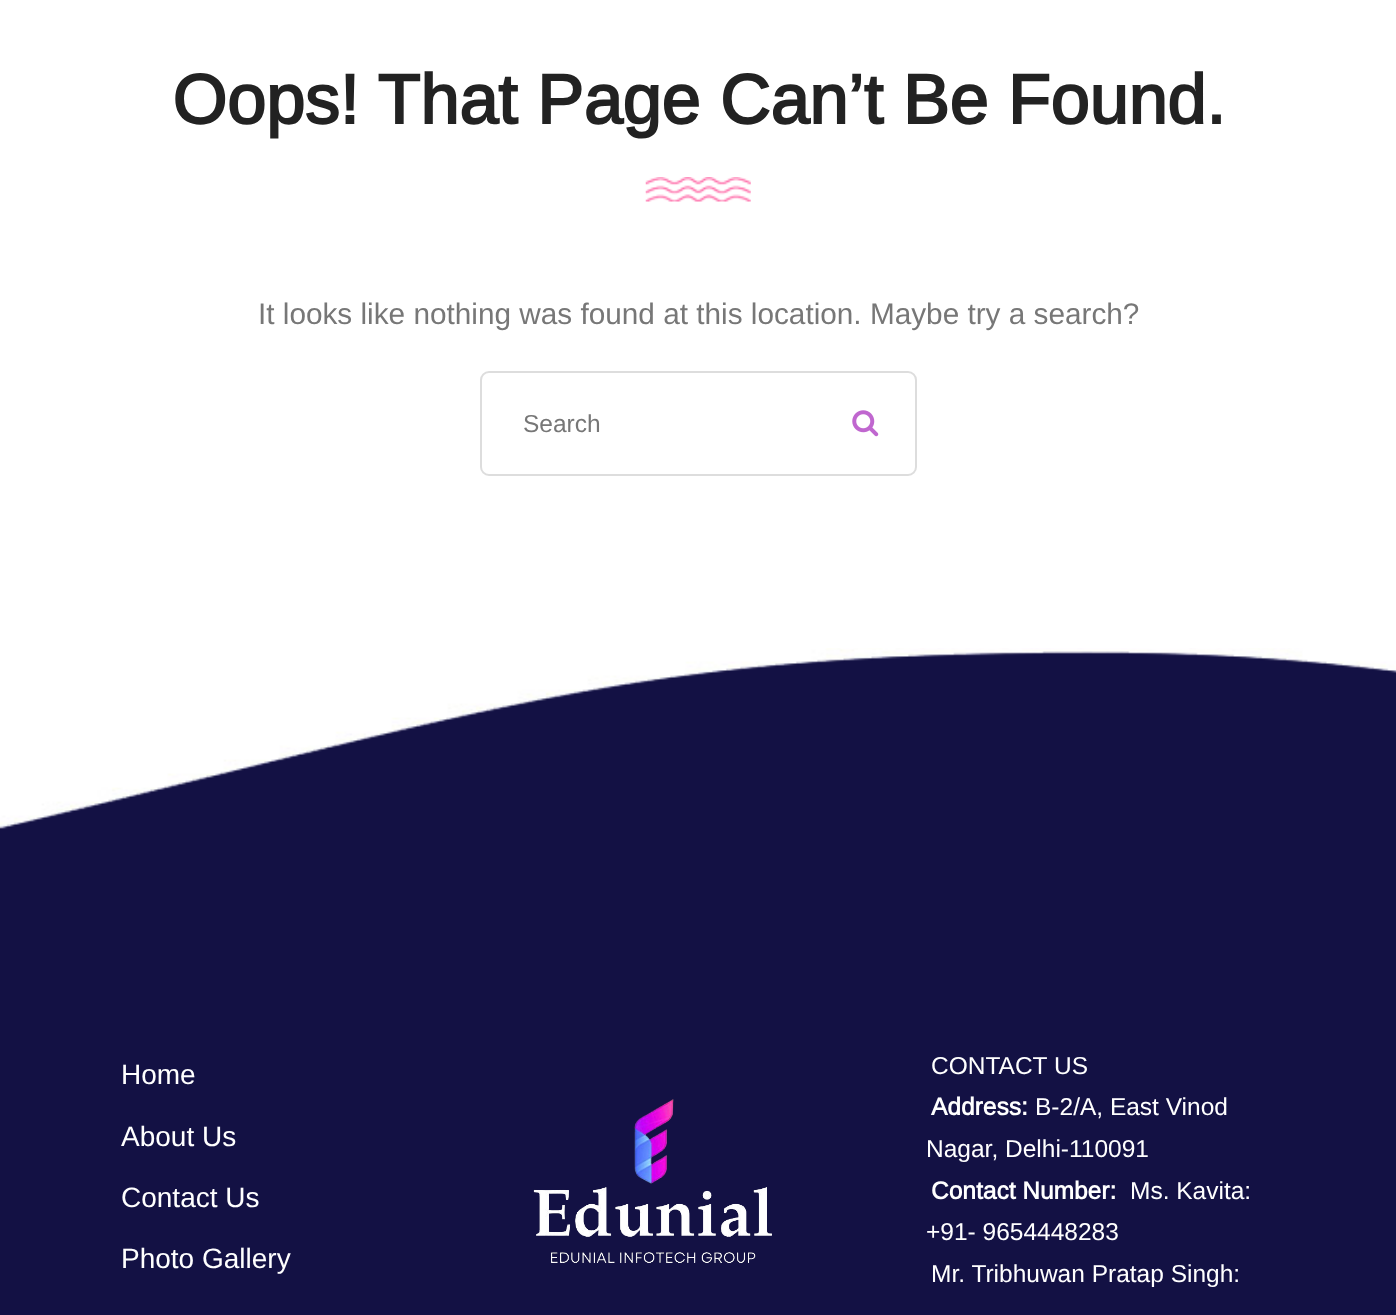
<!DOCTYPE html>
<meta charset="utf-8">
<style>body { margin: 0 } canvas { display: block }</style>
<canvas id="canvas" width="1396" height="1315"></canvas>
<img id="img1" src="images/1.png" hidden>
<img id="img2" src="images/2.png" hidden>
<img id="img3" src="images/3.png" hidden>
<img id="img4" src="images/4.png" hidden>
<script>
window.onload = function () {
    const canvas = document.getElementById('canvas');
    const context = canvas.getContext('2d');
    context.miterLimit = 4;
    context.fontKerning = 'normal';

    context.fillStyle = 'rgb(255, 255, 255)';
    context.fillRect(0, 0, 1396, 1315);
    context.drawImage(document.getElementById('img1'), 645, 177, 106, 25);
    context.beginPath();
    context.roundRect(481, 372, 435, 103, 8);
    context.strokeStyle = 'rgb(221, 221, 221)';
    context.lineWidth = 2;
    context.stroke();
    context.drawImage(document.getElementById('img2'), 852, 410, 27, 27);
    context.fillStyle = 'rgb(19, 17, 68)';
    context.fillRect(0, 651, 1396, 664);
    context.drawImage(document.getElementById('img3'), 0, 648, 1396, 181);
    context.drawImage(document.getElementById('img4'), 533, 1099, 239, 164);
    context.font = 'bold 70px Arimo';
    context.fillStyle = 'rgb(34, 34, 34)';
    context.fillText('Oops! That Page Can’t Be Found.', 172, 124);
    context.font = '29.75px Arimo';
    context.fillStyle = 'rgb(119, 119, 119)';
    context.fillText('It looks like nothing was found at this location. Maybe try a search?', 258, 324);
    context.font = '24.5px Arimo';
    context.fillText('Search', 523, 432);
    context.font = '28px Arimo';
    context.fillStyle = 'rgb(255, 255, 255)';
    context.fillText('Home', 121, 1084);
    context.fillText('About Us', 121, 1146);
    context.fillText('Contact Us', 121, 1207);
    context.fillText('Photo Gallery', 121, 1268);
    context.font = '24.5px Arimo';
    context.fillText('CONTACT US', 931, 1074);
    context.font = 'bold 24.5px Arimo';
    context.fillText('Address:', 931, 1115);
    context.font = '24.5px Arimo';
    context.fillText('B-2/A, East Vinod', 1035, 1115);
    context.fillText('Nagar, Delhi-110091', 926, 1157);
    context.font = 'bold 24.5px Arimo';
    context.fillText('Contact Number:', 931, 1199);
    context.font = '24.5px Arimo';
    context.fillText('Ms. Kavita:', 1130, 1199);
    context.fillText('+91- 9654448283', 926, 1240);
    context.fillText('Mr. Tribhuwan Pratap Singh:', 931, 1282);
};
</script>
